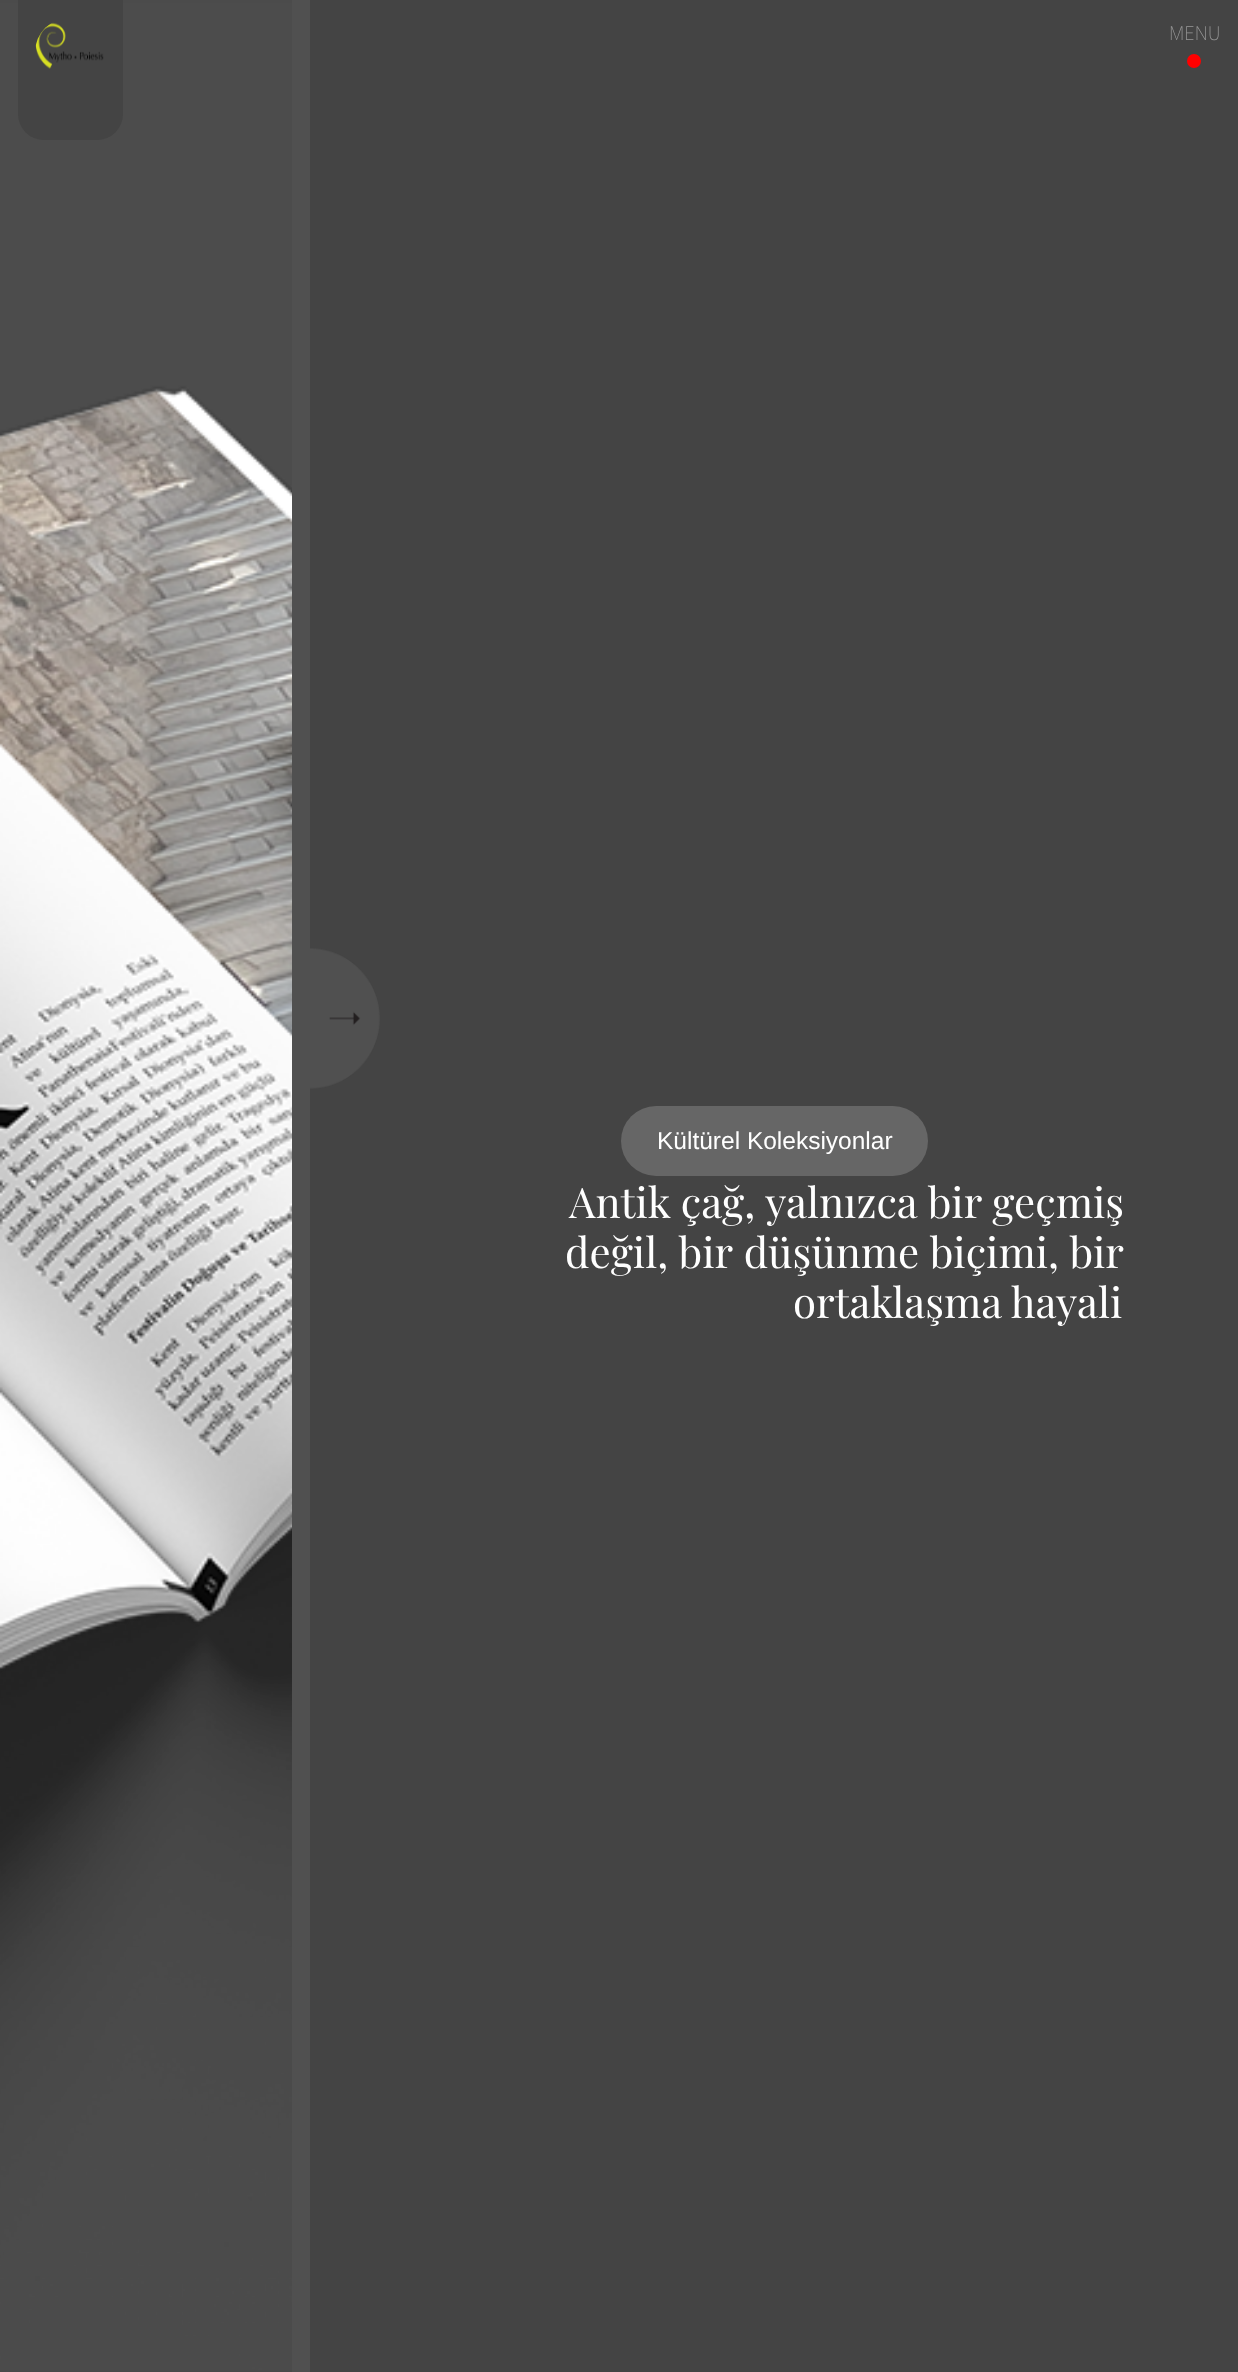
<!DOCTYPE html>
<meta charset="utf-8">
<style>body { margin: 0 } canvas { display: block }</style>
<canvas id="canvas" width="1238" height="2372"></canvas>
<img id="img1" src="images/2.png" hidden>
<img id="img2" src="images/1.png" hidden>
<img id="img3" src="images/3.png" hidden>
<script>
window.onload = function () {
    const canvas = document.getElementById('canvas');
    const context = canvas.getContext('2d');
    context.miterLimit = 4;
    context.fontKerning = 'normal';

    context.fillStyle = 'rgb(68, 68, 68)';
    context.fillRect(0, 0, 1238, 2372);
    context.drawImage(document.getElementById('img1'), 0, 0, 292, 2372);
    context.beginPath();
    context.roundRect(18, 0, 105, 140, [0, 0, 26, 26]);
    context.fill();
    context.drawImage(document.getElementById('img2'), 35, 22, 69, 47);
    context.fillStyle = 'rgb(255, 0, 0)';
    context.beginPath();
    context.arc(1194, 61, 7, 0, 2 * Math.PI);
    context.fill();
    context.fillStyle = 'rgb(80, 80, 80)';
    context.fillRect(292, 0, 18, 2372);
    context.drawImage(document.getElementById('img3'), 310, 948, 70, 141);
    context.fillStyle = 'rgb(102, 102, 102)';
    context.beginPath();
    context.roundRect(621, 1106, 307, 70, 35);
    context.fill();
    context.font = '100 19.5px Sarabun';
    context.fillStyle = 'rgb(153, 153, 153)';
    context.fillText('MENU', 1169, 40);
    context.font = '24.5px Liberation Sans';
    context.fillStyle = 'rgb(255, 255, 255)';
    context.fillText('Kültürel Koleksiyonlar', 657, 1149);
    context.wordSpacing = '-0.5px';
    context.font = '42px Playfair Display';
    context.fillText('Antik çağ, yalnızca bir geçmiş', 569, 1218);
    context.wordSpacing = '0px';
    context.fillText('değil, bir düşünme biçimi, bir', 565, 1268);
    context.wordSpacing = '-2px';
    context.fillText('ortaklaşma hayali', 793, 1318);
};
</script>
